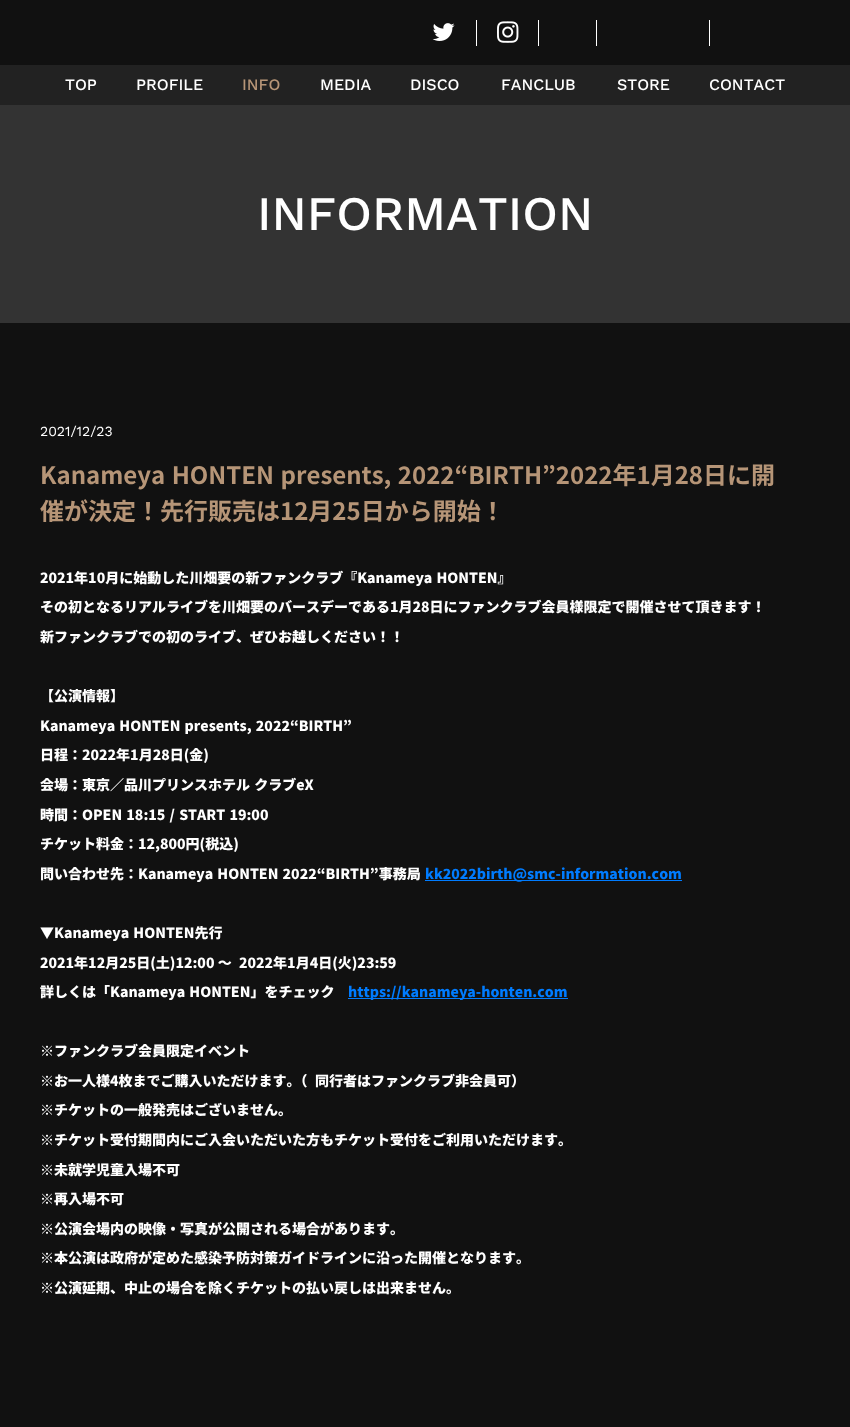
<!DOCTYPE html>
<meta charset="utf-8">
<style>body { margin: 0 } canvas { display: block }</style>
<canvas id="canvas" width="850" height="1427"></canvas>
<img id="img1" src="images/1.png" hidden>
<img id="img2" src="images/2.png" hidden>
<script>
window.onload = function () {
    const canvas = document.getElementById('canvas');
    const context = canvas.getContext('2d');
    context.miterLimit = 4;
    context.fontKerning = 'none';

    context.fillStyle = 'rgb(17, 17, 17)';
    context.fillRect(0, 0, 850, 1427);
    context.drawImage(document.getElementById('img1'), 432, 23, 23, 18);
    context.fillStyle = 'rgb(255, 255, 255)';
    context.fillRect(476, 20, 1, 26);
    context.drawImage(document.getElementById('img2'), 497, 21, 22, 22);
    context.fillRect(538, 20, 1, 26);
    context.fillRect(596, 20, 1, 26);
    context.fillRect(709, 20, 1, 26);
    context.fillStyle = 'rgb(34, 34, 34)';
    context.fillRect(0, 65, 850, 40);
    context.fillStyle = 'rgb(51, 51, 51)';
    context.fillRect(0, 105, 850, 218);
    context.fillStyle = 'rgb(0, 124, 255)';
    context.fillRect(425, 880, 257, 1);
    context.fillRect(348, 998, 220, 1);
    context.font = '500 16px Work Sans';
    context.fillStyle = 'rgb(255, 255, 255)';
    context.fillText('TOP', 65, 90);
    context.fillText('PROFILE', 136, 90);
    context.fillStyle = 'rgb(182, 149, 119)';
    context.fillText('INFO', 242, 90);
    context.fillStyle = 'rgb(255, 255, 255)';
    context.fillText('MEDIA', 320, 90);
    context.fillText('DISCO', 410, 90);
    context.fillText('FANCLUB', 501, 90);
    context.fillText('STORE', 617, 90);
    context.fillText('CONTACT', 709, 90);
    context.font = '500 48px Work Sans';
    context.fillText('INFORMATION', 257, 230);
    context.font = '14px Work Sans';
    context.fillText('2021/12/23', 40, 436);
    context.wordSpacing = '1px';
    context.font = 'bold 24px Noto Sans JP';
    context.fillStyle = 'rgb(182, 149, 119)';
    context.fillText('Kanameya HONTEN presents, 2022“BIRTH”2022年1月28日に開', 40, 484);
    context.wordSpacing = '0px';
    context.fillText('催が決定！先行販売は12月25日から開始！', 40, 520);
    context.wordSpacing = '1px';
    context.font = '900 14px Noto Sans JP';
    context.fillStyle = 'rgb(255, 255, 255)';
    context.fillText('2021年10月に始動した川畑要の新ファンクラブ『Kanameya HONTEN』', 40, 583);
    context.wordSpacing = '0px';
    context.fillText('その初となるリアルライブを川畑要のバースデーである1月28日にファンクラブ会員様限定で開催させて頂きます！', 40, 612);
    context.fillText('新ファンクラブでの初のライブ、ぜひお越しください！！', 40, 642);
    context.fillText('【公演情報】', 40, 701);
    context.wordSpacing = '1px';
    context.fillText('Kanameya HONTEN presents, 2022“BIRTH”', 40, 731);
    context.wordSpacing = '0px';
    context.fillText('日程：2022年1月28日(金)', 40, 760);
    context.wordSpacing = '1px';
    context.fillText('会場：東京／品川プリンスホテル クラブeX', 40, 790);
    context.fillText('時間：OPEN 18:15 / START 19:00', 40, 820);
    context.wordSpacing = '0px';
    context.fillText('チケット料金：12,800円(税込)', 40, 849);
    context.wordSpacing = '1px';
    context.fillText('問い合わせ先：Kanameya HONTEN 2022“BIRTH”事務局', 40, 879);
    context.wordSpacing = '0px';
    context.fillStyle = 'rgb(0, 124, 255)';
    context.fillText('kk2022birth@smc-information.com', 425, 879);
    context.wordSpacing = '1px';
    context.fillStyle = 'rgb(255, 255, 255)';
    context.fillText('▼Kanameya HONTEN先行', 40, 938);
    context.wordSpacing = '0px';
    context.fillText('2021年12月25日(土)12:00 〜', 40, 968);
    context.fillText('2022年1月4日(火)23:59', 239, 968);
    context.wordSpacing = '1px';
    context.fillText('詳しくは「Kanameya HONTEN」をチェック', 40, 997);
    context.wordSpacing = '0px';
    context.fillStyle = 'rgb(0, 124, 255)';
    context.fillText('https://kanameya-honten.com', 348, 997);
    context.fillStyle = 'rgb(255, 255, 255)';
    context.fillText('※ファンクラブ会員限定イベント', 40, 1056);
    context.fillText('※お一人様4枚までご購入いただけます。（', 40, 1086);
    context.fillText('同行者はファンクラブ非会員可）', 315, 1086);
    context.fillText('※チケットの一般発売はございません。', 40, 1115);
    context.fillText('※チケット受付期間内にご入会いただいた方もチケット受付をご利用いただけます。', 40, 1145);
    context.fillText('※未就学児童入場不可', 40, 1175);
    context.fillText('※再入場不可', 40, 1204);
    context.fillText('※公演会場内の映像・写真が公開される場合があります。', 40, 1234);
    context.fillText('※本公演は政府が定めた感染予防対策ガイドラインに沿った開催となります。', 40, 1263);
    context.fillText('※公演延期、中止の場合を除くチケットの払い戻しは出来ません。', 40, 1293);
};
</script>
